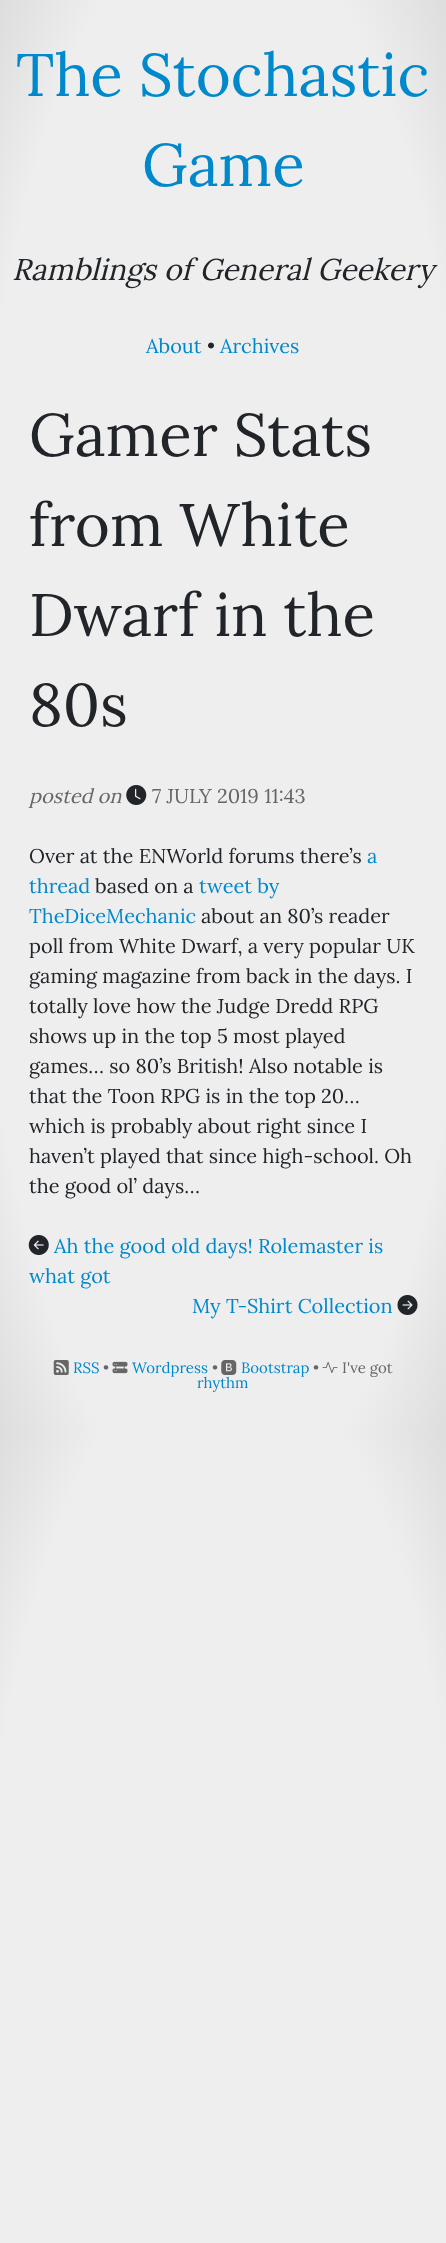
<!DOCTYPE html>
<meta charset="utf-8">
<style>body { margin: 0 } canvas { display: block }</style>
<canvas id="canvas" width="446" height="2243"></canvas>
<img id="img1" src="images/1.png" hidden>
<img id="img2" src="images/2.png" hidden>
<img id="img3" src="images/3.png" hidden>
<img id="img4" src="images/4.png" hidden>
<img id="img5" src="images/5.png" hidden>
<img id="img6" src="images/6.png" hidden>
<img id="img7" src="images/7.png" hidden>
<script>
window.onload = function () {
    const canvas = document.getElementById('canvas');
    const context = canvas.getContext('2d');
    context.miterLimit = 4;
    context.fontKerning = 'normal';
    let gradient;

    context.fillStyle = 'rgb(255, 255, 255)';
    context.fillRect(0, 0, 446, 2243);
    gradient = context.createRadialGradient(223, 223.57, 0, 223, 223.57, 316);
    gradient.addColorStop(0, 'rgb(238, 238, 238)');
    gradient.addColorStop(0.8, 'rgb(238, 238, 238)');
    gradient.addColorStop(1, 'rgb(221, 221, 221)');
    context.fillStyle = gradient;
    context.beginPath();
    context.rect(0, 0, 446, 1431);
    context.save();
    context.clip();
    context.scale(1, 1012 / 316);
    context.fillRect(0, 0, 446, 701);
    context.restore();
    gradient = context.createRadialGradient(223, 670.41, 0, 223, 670.41, 316);
    gradient.addColorStop(0, 'rgb(238, 238, 238)');
    gradient.addColorStop(0.8, 'rgb(238, 238, 238)');
    gradient.addColorStop(1, 'rgb(221, 221, 221)');
    context.fillStyle = gradient;
    context.beginPath();
    context.rect(0, 1431, 446, 812);
    context.save();
    context.clip();
    context.scale(1, 1012 / 316);
    context.fillRect(0, 0, 446, 701);
    context.restore();
    context.drawImage(document.getElementById('img1'), 126, 785, 21, 20);
    context.drawImage(document.getElementById('img2'), 28, 1235, 21, 20);
    context.drawImage(document.getElementById('img3'), 397, 1295, 21, 20);
    context.drawImage(document.getElementById('img4'), 53, 1360, 16, 15);
    context.drawImage(document.getElementById('img5'), 112, 1361, 16, 13);
    context.drawImage(document.getElementById('img6'), 221, 1360, 16, 15);
    context.drawImage(document.getElementById('img7'), 322, 1361, 16, 12);
    context.font = '60px Lora';
    context.fillStyle = 'rgb(0, 136, 204)';
    context.fillText('The Stochastic', 16, 96);
    context.fillText('Game', 142, 186);
    context.font = 'italic 30px Lora';
    context.fillStyle = 'rgb(33, 37, 41)';
    context.fillText('Ramblings of General Geekery', 12, 280);
    context.font = '20px Lora';
    context.fillStyle = 'rgb(0, 136, 204)';
    context.fillText('About', 146, 353);
    context.fillStyle = 'rgb(33, 37, 41)';
    context.fillText('•', 207, 353);
    context.fillStyle = 'rgb(0, 136, 204)';
    context.fillText('Archives', 220, 353);
    context.font = '60px Lora';
    context.fillStyle = 'rgb(33, 37, 41)';
    context.fillText('Gamer Stats', 29, 456);
    context.fillText('from White', 29, 546);
    context.fillText('Dwarf in the', 29, 636);
    context.fillText('80s', 29, 726);
    context.font = 'italic 20px Lora';
    context.fillStyle = 'rgb(102, 102, 102)';
    context.fillText('posted on', 29, 803);
    context.font = '20px Lora';
    context.fillText('7 JULY 2019 11:43', 152, 803);
    context.fillStyle = 'rgb(33, 37, 41)';
    context.fillText('Over at the ENWorld forums there’s', 29, 863);
    context.fillStyle = 'rgb(0, 136, 204)';
    context.fillText('a', 367, 863);
    context.fillText('thread', 29, 893);
    context.fillStyle = 'rgb(33, 37, 41)';
    context.fillText('based on a', 95, 893);
    context.fillStyle = 'rgb(0, 136, 204)';
    context.fillText('tweet by', 199, 893);
    context.fillText('TheDiceMechanic', 29, 923);
    context.fillStyle = 'rgb(33, 37, 41)';
    context.fillText('about an 80’s reader', 201, 923);
    context.fillText('poll from White Dwarf, a very popular UK', 29, 953);
    context.fillText('gaming magazine from back in the days. I', 29, 983);
    context.fillText('totally love how the Judge Dredd RPG', 29, 1013);
    context.fillText('shows up in the top 5 most played', 29, 1043);
    context.fillText('games… so 80’s British! Also notable is', 29, 1073);
    context.fillText('that the Toon RPG is in the top 20…', 29, 1103);
    context.fillText('which is probably about right since I', 29, 1133);
    context.fillText('haven’t played that since high-school. Oh', 29, 1163);
    context.fillText('the good ol’ days…', 29, 1193);
    context.fillStyle = 'rgb(0, 136, 204)';
    context.fillText('Ah the good old days! Rolemaster is', 54, 1253);
    context.fillText('what got', 29, 1283);
    context.fillText('My T-Shirt Collection', 192, 1313);
    context.font = '15px Lora';
    context.fillText('RSS', 73, 1373);
    context.fillStyle = 'rgb(102, 102, 102)';
    context.fillText('•', 103, 1373);
    context.fillStyle = 'rgb(0, 136, 204)';
    context.fillText('Wordpress', 132, 1373);
    context.fillStyle = 'rgb(102, 102, 102)';
    context.fillText('•', 212, 1373);
    context.fillStyle = 'rgb(0, 136, 204)';
    context.fillText('Bootstrap', 241, 1373);
    context.fillStyle = 'rgb(102, 102, 102)';
    context.fillText('•', 313, 1373);
    context.fillText('I\'ve got', 342, 1373);
    context.fillStyle = 'rgb(0, 136, 204)';
    context.fillText('rhythm', 197, 1388);
};
</script>
